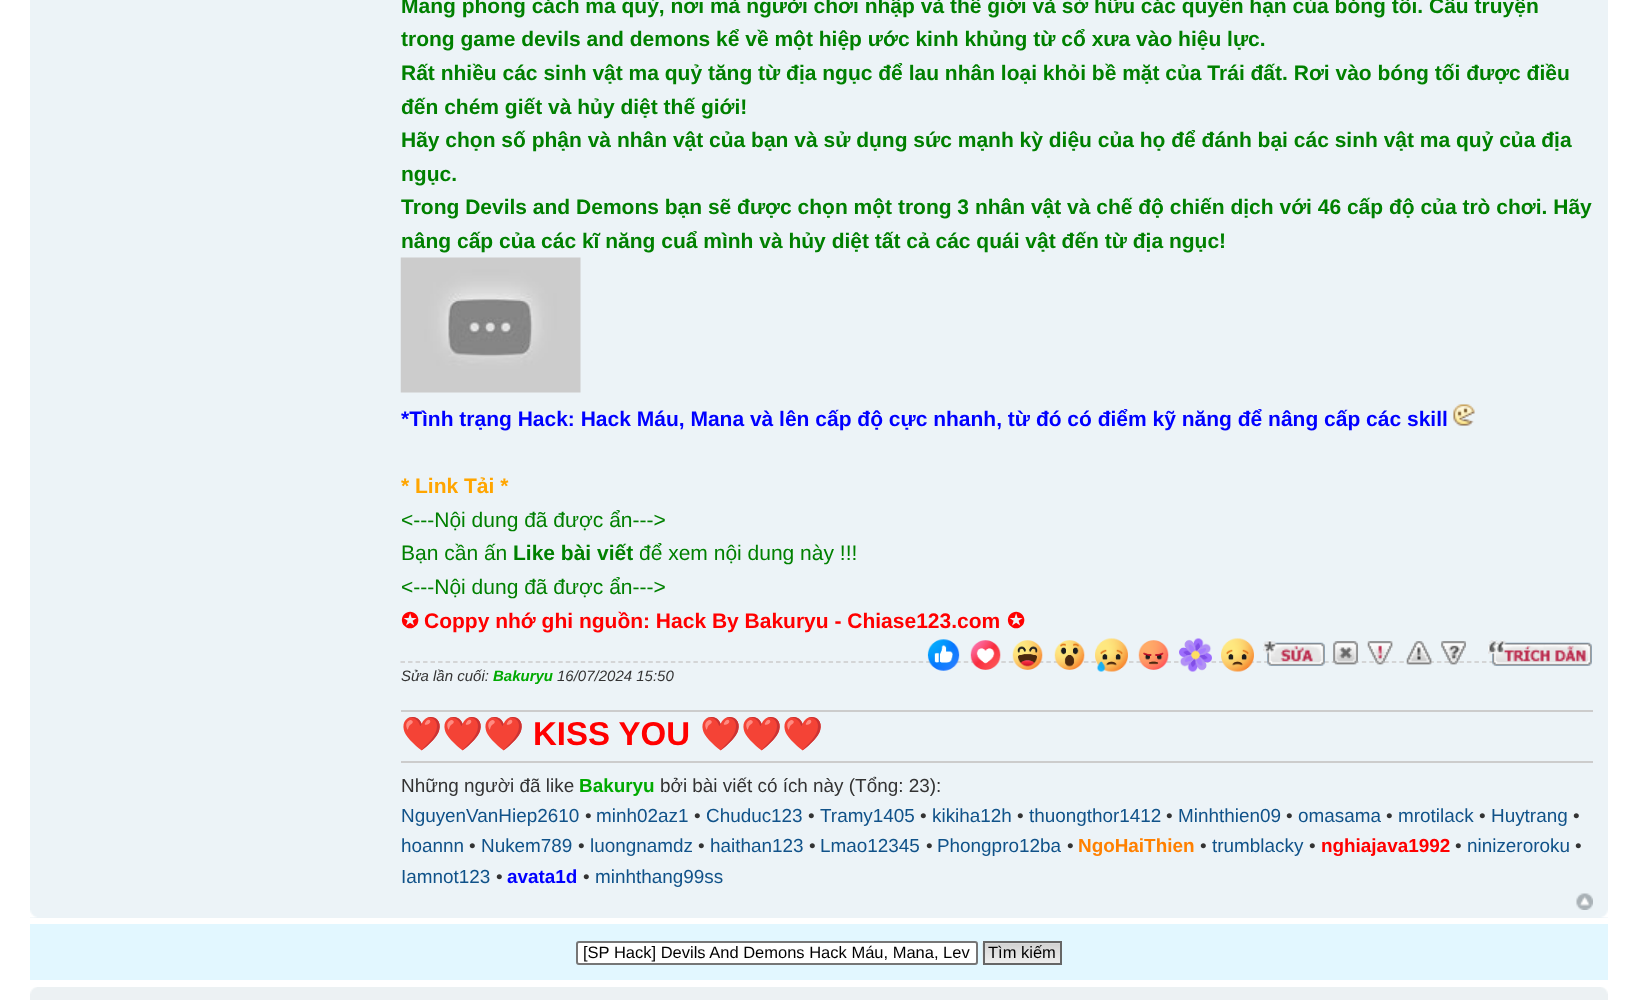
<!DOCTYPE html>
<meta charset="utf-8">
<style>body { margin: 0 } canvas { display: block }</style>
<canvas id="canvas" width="1637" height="1000"></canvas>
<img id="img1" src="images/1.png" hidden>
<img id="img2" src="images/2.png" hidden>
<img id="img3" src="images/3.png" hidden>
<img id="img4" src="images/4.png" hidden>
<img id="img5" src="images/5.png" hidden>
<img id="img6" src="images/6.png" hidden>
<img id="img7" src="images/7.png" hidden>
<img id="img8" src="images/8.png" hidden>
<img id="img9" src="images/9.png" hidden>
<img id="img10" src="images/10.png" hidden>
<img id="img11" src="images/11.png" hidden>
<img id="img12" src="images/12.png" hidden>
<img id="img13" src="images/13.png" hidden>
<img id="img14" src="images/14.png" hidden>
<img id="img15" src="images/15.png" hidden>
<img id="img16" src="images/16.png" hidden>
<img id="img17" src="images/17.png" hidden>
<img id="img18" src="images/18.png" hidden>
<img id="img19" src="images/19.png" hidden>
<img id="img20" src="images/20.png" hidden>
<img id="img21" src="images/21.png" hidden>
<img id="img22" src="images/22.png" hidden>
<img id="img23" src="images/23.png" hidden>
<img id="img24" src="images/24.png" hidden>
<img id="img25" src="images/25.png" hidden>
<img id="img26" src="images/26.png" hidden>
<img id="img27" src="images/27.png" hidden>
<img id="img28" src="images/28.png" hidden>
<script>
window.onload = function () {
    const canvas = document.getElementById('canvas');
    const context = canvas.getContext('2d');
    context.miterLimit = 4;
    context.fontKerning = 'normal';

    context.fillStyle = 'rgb(255, 255, 255)';
    context.fillRect(0, 0, 1637, 1000);
    context.fillStyle = 'rgb(236, 243, 247)';
    context.fillRect(30, 0, 1578, 918);
    context.drawImage(document.getElementById('img1'), 400, 257, 181, 136);
    context.drawImage(document.getElementById('img2'), 1453, 404, 22, 22);
    context.beginPath();
    context.moveTo(400.5, 662);
    context.lineTo(1593, 662);
    context.strokeStyle = 'rgb(204, 204, 204)';
    context.lineWidth = 1.5;
    context.setLineDash([4.5, 3.01]);
    context.stroke();
    context.drawImage(document.getElementById('img3'), 927, 639, 33, 32);
    context.drawImage(document.getElementById('img4'), 970, 640, 31, 30);
    context.drawImage(document.getElementById('img5'), 1012, 640, 31, 30);
    context.drawImage(document.getElementById('img6'), 1054, 640, 31, 30);
    context.drawImage(document.getElementById('img7'), 1095, 638, 33, 34);
    context.drawImage(document.getElementById('img8'), 1138, 640, 31, 30);
    context.drawImage(document.getElementById('img9'), 1179, 638, 33, 34);
    context.drawImage(document.getElementById('img10'), 1221, 638, 33, 34);
    context.drawImage(document.getElementById('img11'), 1263, 640, 62, 26);
    context.drawImage(document.getElementById('img12'), 1263, 641, 62, 25);
    context.drawImage(document.getElementById('img13'), 1333, 641, 25, 24);
    context.drawImage(document.getElementById('img14'), 1333, 641, 25, 24);
    context.drawImage(document.getElementById('img15'), 1367, 641, 26, 24);
    context.drawImage(document.getElementById('img16'), 1367, 641, 26, 24);
    context.drawImage(document.getElementById('img17'), 1406, 641, 26, 24);
    context.drawImage(document.getElementById('img18'), 1406, 641, 26, 24);
    context.drawImage(document.getElementById('img19'), 1441, 641, 25, 24);
    context.drawImage(document.getElementById('img20'), 1441, 641, 25, 24);
    context.drawImage(document.getElementById('img21'), 1488, 640, 104, 26);
    context.drawImage(document.getElementById('img22'), 1488, 640, 104, 26);
    context.fillStyle = 'rgb(204, 204, 204)';
    context.fillRect(401, 710, 1192, 2);
    context.fillRect(401, 761, 1192, 2);
    context.drawImage(document.getElementById('img23'), 1576, 893, 17, 17);
    context.drawImage(document.getElementById('img24'), 30, 910, 7, 8);
    context.drawImage(document.getElementById('img25'), 1601, 910, 7, 8);
    context.fillStyle = 'rgb(226, 247, 255)';
    context.fillRect(30, 924, 1578, 56);
    context.fillStyle = 'rgb(255, 255, 255)';
    context.beginPath();
    context.roundRect(577, 942, 400, 22, 2);
    context.fill();
    context.strokeStyle = 'rgb(118, 118, 118)';
    context.lineWidth = 2;
    context.setLineDash([]);
    context.stroke();
    context.drawImage(document.getElementById('img26'), 982, 941, 78, 23);
    context.strokeStyle = 'rgb(102, 102, 102)';
    context.strokeRect(984, 942, 77, 22);
    context.fillStyle = 'rgb(236, 241, 243)';
    context.fillRect(30, 987, 1578, 13);
    context.drawImage(document.getElementById('img27'), 30, 987, 7, 7);
    context.drawImage(document.getElementById('img28'), 1601, 987, 7, 7);
    context.font = 'bold 21px Liberation Sans';
    context.fillStyle = 'rgb(0, 128, 0)';
    context.fillText('Mang phong cách ma quỷ, nơi mà người chơi nhập và thế giới và sở hữu các quyền hạn của bóng tối. Câu truyện', 401, 13);
    context.fillText('trong game devils and demons kể về một hiệp ước kinh khủng từ cổ xưa vào hiệu lực.', 401, 46);
    context.fillText('Rất nhiều các sinh vật ma quỷ tăng từ địa ngục để lau nhân loại khỏi bề mặt của Trái đất. Rơi vào bóng tối được điều', 401, 80);
    context.fillText('đến chém giết và hủy diệt thế giới!', 401, 114);
    context.fillText('Hãy chọn số phận và nhân vật của bạn và sử dụng sức mạnh kỳ diệu của họ để đánh bại các sinh vật ma quỷ của địa', 401, 147);
    context.fillText('ngục.', 401, 181);
    context.fillText('Trong Devils and Demons bạn sẽ được chọn một trong 3 nhân vật và chế độ chiến dịch với 46 cấp độ của trò chơi. Hãy', 401, 214);
    context.fillText('nâng cấp của các kĩ năng cuẩ mình và hủy diệt tất cả các quái vật đến từ địa ngục!', 401, 248);
    context.fillStyle = 'rgb(0, 0, 255)';
    context.fillText('*Tình trạng Hack: Hack Máu, Mana và lên cấp độ cực nhanh, từ đó có điểm kỹ năng để nâng cấp các skill', 401, 426);
    context.fillStyle = 'rgb(255, 165, 0)';
    context.fillText('* Link Tải *', 401, 493);
    context.font = '21px Liberation Sans';
    context.fillStyle = 'rgb(0, 128, 0)';
    context.fillText('<---Nội dung đã được ẩn--->', 401, 527);
    context.fillText('Bạn cần ấn', 401, 560);
    context.font = 'bold 21px Liberation Sans';
    context.fillText('Like bài viết', 513, 560);
    context.font = '21px Liberation Sans';
    context.fillText('để xem nội dung này !!!', 639, 560);
    context.fillText('<---Nội dung đã được ẩn--->', 401, 594);
    context.font = 'bold 21px DejaVu Sans';
    context.fillStyle = 'rgb(255, 0, 0)';
    context.fillText('✪', 401, 628);
    context.font = 'bold 21px Liberation Sans';
    context.fillText('Coppy nhớ ghi nguồn: Hack By Bakuryu - Chiase123.com', 424, 628);
    context.font = 'bold 21px DejaVu Sans';
    context.fillText('✪', 1007, 628);
    context.font = 'italic 15px Liberation Sans';
    context.fillStyle = 'rgb(51, 51, 51)';
    context.fillText('Sửa lần cuối:', 401, 681);
    context.font = 'italic bold 15px Liberation Sans';
    context.fillStyle = 'rgb(0, 170, 0)';
    context.fillText('Bakuryu', 493, 681);
    context.font = 'italic 15px Liberation Sans';
    context.fillStyle = 'rgb(51, 51, 51)';
    context.fillText('16/07/2024 15:50', 557, 681);
    context.font = 'bold 33px Noto Color Emoji';
    context.fillStyle = 'rgb(255, 0, 0)';
    context.fillText('❤️❤️❤️', 401, 745);
    context.font = 'bold 33px Liberation Sans';
    context.fillText('KISS YOU', 533, 745);
    context.font = 'bold 33px Noto Color Emoji';
    context.fillText('❤️❤️❤️', 700, 745);
    context.font = '18.9px Liberation Sans';
    context.fillStyle = 'rgb(51, 51, 51)';
    context.fillText('Những người đã like', 401, 792);
    context.font = 'bold 18.9px Liberation Sans';
    context.fillStyle = 'rgb(0, 170, 0)';
    context.fillText('Bakuryu', 579, 792);
    context.font = '18.9px Liberation Sans';
    context.fillStyle = 'rgb(51, 51, 51)';
    context.fillText('bởi bài viết có ích này (Tổng: 23):', 660, 792);
    context.fillStyle = 'rgb(16, 82, 137)';
    context.fillText('NguyenVanHiep2610', 401, 822);
    context.fillStyle = 'rgb(51, 51, 51)';
    context.fillText('•', 585, 822);
    context.fillStyle = 'rgb(16, 82, 137)';
    context.fillText('minh02az1', 596, 822);
    context.fillStyle = 'rgb(51, 51, 51)';
    context.fillText('•', 694, 822);
    context.fillStyle = 'rgb(16, 82, 137)';
    context.fillText('Chuduc123', 706, 822);
    context.fillStyle = 'rgb(51, 51, 51)';
    context.fillText('•', 808, 822);
    context.fillStyle = 'rgb(16, 82, 137)';
    context.fillText('Tramy1405', 820, 822);
    context.fillStyle = 'rgb(51, 51, 51)';
    context.fillText('•', 920, 822);
    context.fillStyle = 'rgb(16, 82, 137)';
    context.fillText('kikiha12h', 932, 822);
    context.fillStyle = 'rgb(51, 51, 51)';
    context.fillText('•', 1017, 822);
    context.fillStyle = 'rgb(16, 82, 137)';
    context.fillText('thuongthor1412', 1029, 822);
    context.fillStyle = 'rgb(51, 51, 51)';
    context.fillText('•', 1166, 822);
    context.fillStyle = 'rgb(16, 82, 137)';
    context.fillText('Minhthien09', 1178, 822);
    context.fillStyle = 'rgb(51, 51, 51)';
    context.fillText('•', 1286, 822);
    context.fillStyle = 'rgb(16, 82, 137)';
    context.fillText('omasama', 1298, 822);
    context.fillStyle = 'rgb(51, 51, 51)';
    context.fillText('•', 1386, 822);
    context.fillStyle = 'rgb(16, 82, 137)';
    context.fillText('mrotilack', 1398, 822);
    context.fillStyle = 'rgb(51, 51, 51)';
    context.fillText('•', 1479, 822);
    context.fillStyle = 'rgb(16, 82, 137)';
    context.fillText('Huytrang', 1491, 822);
    context.fillStyle = 'rgb(51, 51, 51)';
    context.fillText('•', 1573, 822);
    context.fillStyle = 'rgb(16, 82, 137)';
    context.fillText('hoannn', 401, 852);
    context.fillStyle = 'rgb(51, 51, 51)';
    context.fillText('•', 469, 852);
    context.fillStyle = 'rgb(16, 82, 137)';
    context.fillText('Nukem789', 481, 852);
    context.fillStyle = 'rgb(51, 51, 51)';
    context.fillText('•', 578, 852);
    context.fillStyle = 'rgb(16, 82, 137)';
    context.fillText('luongnamdz', 590, 852);
    context.fillStyle = 'rgb(51, 51, 51)';
    context.fillText('•', 698, 852);
    context.fillStyle = 'rgb(16, 82, 137)';
    context.fillText('haithan123', 710, 852);
    context.fillStyle = 'rgb(51, 51, 51)';
    context.fillText('•', 809, 852);
    context.fillStyle = 'rgb(16, 82, 137)';
    context.fillText('Lmao12345', 820, 852);
    context.fillStyle = 'rgb(51, 51, 51)';
    context.fillText('•', 926, 852);
    context.fillStyle = 'rgb(16, 82, 137)';
    context.fillText('Phongpro12ba', 937, 852);
    context.fillStyle = 'rgb(51, 51, 51)';
    context.fillText('•', 1067, 852);
    context.font = 'bold 18.9px Liberation Sans';
    context.fillStyle = 'rgb(255, 128, 0)';
    context.fillText('NgoHaiThien', 1078, 852);
    context.font = '18.9px Liberation Sans';
    context.fillStyle = 'rgb(51, 51, 51)';
    context.fillText('•', 1200, 852);
    context.fillStyle = 'rgb(16, 82, 137)';
    context.fillText('trumblacky', 1212, 852);
    context.fillStyle = 'rgb(51, 51, 51)';
    context.fillText('•', 1309, 852);
    context.font = 'bold 18.9px Liberation Sans';
    context.fillStyle = 'rgb(255, 0, 0)';
    context.fillText('nghiajava1992', 1321, 852);
    context.font = '18.9px Liberation Sans';
    context.fillStyle = 'rgb(51, 51, 51)';
    context.fillText('•', 1455, 852);
    context.fillStyle = 'rgb(16, 82, 137)';
    context.fillText('ninizeroroku', 1467, 852);
    context.fillStyle = 'rgb(51, 51, 51)';
    context.fillText('•', 1575, 852);
    context.fillStyle = 'rgb(16, 82, 137)';
    context.fillText('Iamnot123', 401, 883);
    context.fillStyle = 'rgb(51, 51, 51)';
    context.fillText('•', 496, 883);
    context.font = 'bold 18.9px Liberation Sans';
    context.fillStyle = 'rgb(0, 0, 255)';
    context.fillText('avata1d', 507, 883);
    context.font = '18.9px Liberation Sans';
    context.fillStyle = 'rgb(51, 51, 51)';
    context.fillText('•', 583, 883);
    context.fillStyle = 'rgb(16, 82, 137)';
    context.fillText('minhthang99ss', 595, 883);
    context.font = '16.5px Liberation Sans';
    context.fillStyle = 'rgb(0, 0, 0)';
    context.fillText('[SP Hack] Devils And Demons Hack Máu, Mana, Lev', 583, 958);
    context.fillText('Tìm kiếm', 988, 958);
};
</script>
